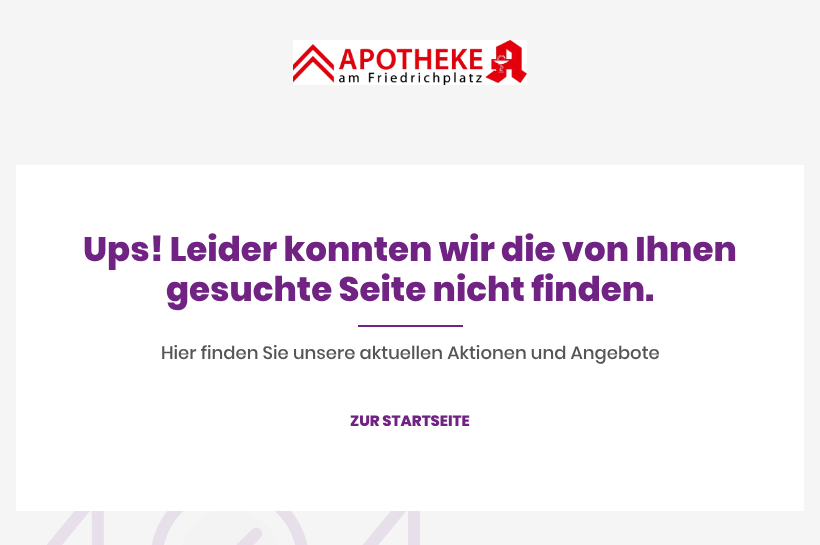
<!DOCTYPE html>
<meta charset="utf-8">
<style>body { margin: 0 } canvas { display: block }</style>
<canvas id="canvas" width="820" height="545"></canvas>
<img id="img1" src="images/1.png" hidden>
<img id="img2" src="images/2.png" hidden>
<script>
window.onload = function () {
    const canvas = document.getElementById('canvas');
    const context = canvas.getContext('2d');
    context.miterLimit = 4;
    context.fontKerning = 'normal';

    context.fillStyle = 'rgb(245, 245, 245)';
    context.fillRect(0, 0, 820, 545);
    context.drawImage(document.getElementById('img1'), 293, 40, 234, 45);
    context.fillStyle = 'rgb(255, 255, 255)';
    context.fillRect(16, 165, 788, 346);
    context.fillStyle = 'rgb(112, 35, 131)';
    context.fillRect(358, 325, 105, 2);
    context.drawImage(document.getElementById('img2'), 47, 511, 373, 34);
    context.font = '800 34px Poppins';
    context.fillText('Ups! Leider konnten wir die von Ihnen', 83, 261);
    context.fillText('gesuchte Seite nicht finden.', 166, 301);
    context.font = '500 18px Poppins';
    context.fillStyle = 'rgb(85, 85, 85)';
    context.fillText('Hier finden Sie unsere aktuellen Aktionen und Angebote', 161, 359);
    context.font = '800 15px Poppins';
    context.fillStyle = 'rgb(112, 35, 131)';
    context.fillText('ZUR STARTSEITE', 350, 426);
};
</script>
